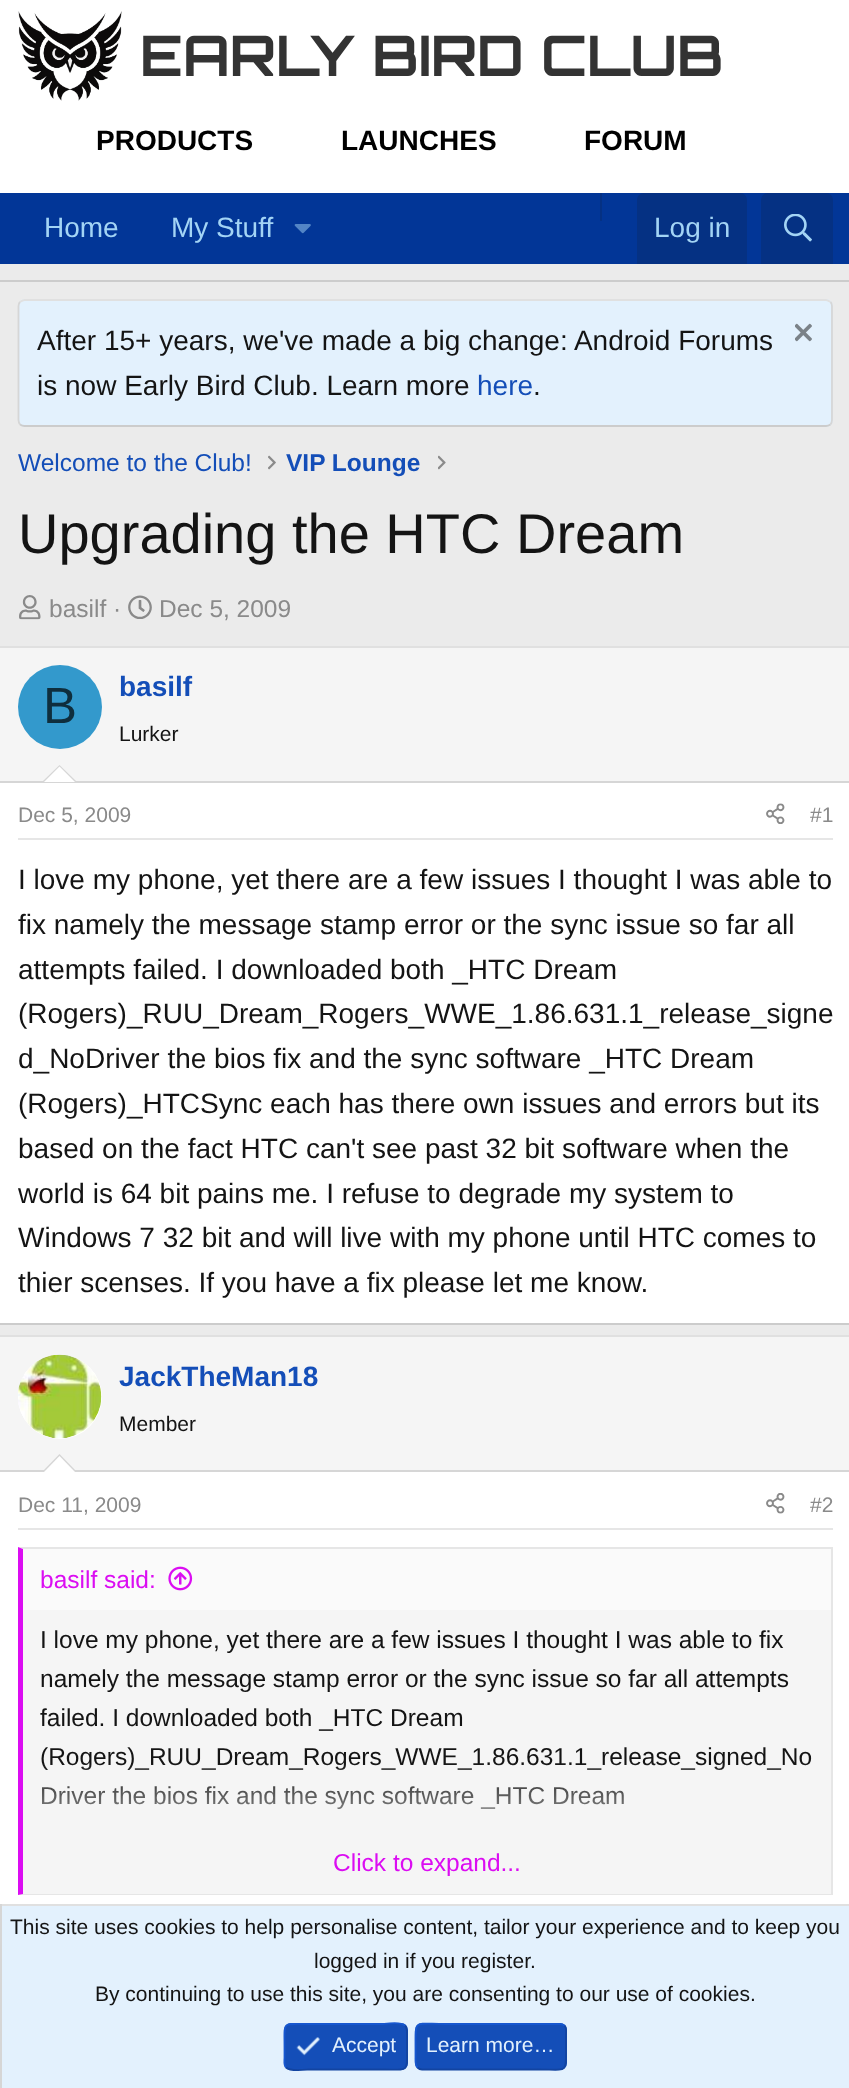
<!DOCTYPE html>
<meta charset="utf-8">
<style>body { margin: 0 } canvas { display: block }</style>
<canvas id="canvas" width="849" height="2088"></canvas>
<img id="img1" src="images/1.png" hidden>
<img id="img2" src="images/2.png" hidden>
<img id="img3" src="images/3.png" hidden>
<img id="img4" src="images/4.png" hidden>
<img id="img5" src="images/5.png" hidden>
<img id="img6" src="images/6.png" hidden>
<img id="img7" src="images/7.png" hidden>
<img id="img8" src="images/8.png" hidden>
<img id="img9" src="images/9.png" hidden>
<img id="img10" src="images/10.png" hidden>
<img id="img11" src="images/11.png" hidden>
<img id="img12" src="images/12.png" hidden>
<img id="img13" src="images/13.png" hidden>
<script>
window.onload = function () {
    const canvas = document.getElementById('canvas');
    const context = canvas.getContext('2d');
    context.miterLimit = 4;
    context.fontKerning = 'normal';
    let gradient;

    context.fillStyle = 'rgb(235, 235, 235)';
    context.fillRect(0, 0, 849, 2088);
    context.fillStyle = 'rgb(255, 255, 255)';
    context.fillRect(0, 0, 849, 193);
    context.drawImage(document.getElementById('img1'), 18, 11, 104, 90);
    context.fillStyle = 'rgb(2, 54, 151)';
    context.fillRect(0, 193, 849, 71);
    context.drawImage(document.getElementById('img2'), 294, 224, 17, 10);
    context.fillStyle = 'rgb(5, 49, 131)';
    context.fillRect(600, 193, 2, 28);
    context.beginPath();
    context.roundRect(637, 193, 110, 71, [7, 7, 0, 0]);
    context.fill();
    context.beginPath();
    context.roundRect(761, 193, 72, 71, [7, 7, 0, 0]);
    context.fill();
    context.drawImage(document.getElementById('img3'), 784, 214, 28, 28);
    context.fillStyle = 'rgb(204, 204, 204)';
    context.fillRect(0, 280, 849, 2);
    context.fillStyle = 'rgb(227, 241, 253)';
    context.beginPath();
    context.roundRect(18, 299, 815, 128, 7);
    context.fill();
    context.beginPath();
    context.moveTo(20, 302);
    context.bezierCurveTo(21.5, 301, 23, 300, 24.5, 300);
    context.lineTo(826, 300);
    context.bezierCurveTo(827.5, 300, 829, 301, 830.5, 302);
    context.strokeStyle = 'rgb(224, 224, 224)';
    context.lineWidth = 1.8;
    context.stroke();
    context.beginPath();
    context.moveTo(830.5, 302);
    context.bezierCurveTo(831.5, 303, 832, 304.5, 832, 306);
    context.lineTo(832, 420);
    context.bezierCurveTo(832, 421.5, 831.5, 423, 830.5, 424.5);
    context.strokeStyle = 'rgb(214, 214, 214)';
    context.stroke();
    context.beginPath();
    context.moveTo(830.5, 424.5);
    context.bezierCurveTo(829, 425.5, 827.5, 426, 826, 426);
    context.lineTo(24.5, 426);
    context.bezierCurveTo(23, 426, 21.5, 425.5, 20, 424.5);
    context.strokeStyle = 'rgb(204, 204, 204)';
    context.stroke();
    context.beginPath();
    context.moveTo(20, 424.5);
    context.bezierCurveTo(19, 423, 18.5, 421.5, 18.5, 420);
    context.lineTo(18.5, 306);
    context.bezierCurveTo(18.5, 304.5, 19, 303, 20, 302);
    context.strokeStyle = 'rgb(214, 214, 214)';
    context.stroke();
    context.drawImage(document.getElementById('img4'), 795, 323, 17, 19);
    context.drawImage(document.getElementById('img5'), 268, 455, 8, 15);
    context.drawImage(document.getElementById('img6'), 438, 455, 8, 15);
    context.drawImage(document.getElementById('img7'), 19, 595, 22, 25);
    context.drawImage(document.getElementById('img8'), 128, 595, 24, 24);
    context.fillStyle = 'rgb(255, 255, 255)';
    context.fillRect(0, 783, 849, 540);
    context.fillStyle = 'rgb(224, 224, 224)';
    context.fillRect(0, 646, 849, 2);
    context.fillStyle = 'rgb(204, 204, 204)';
    context.fillRect(0, 1323, 849, 2);
    context.fillStyle = 'rgb(245, 245, 245)';
    context.fillRect(0, 648, 849, 133);
    context.fillStyle = 'rgb(214, 214, 214)';
    context.fillRect(0, 781, 849, 2);
    context.fillStyle = 'rgb(51, 153, 204)';
    context.beginPath();
    context.arc(60, 707, 42, 0, 2 * Math.PI);
    context.fill();
    context.fillStyle = 'rgb(214, 214, 214)';
    context.beginPath();
    context.moveTo(77, 782);
    context.lineTo(42, 782);
    context.lineTo(59.5, 765);
    context.closePath();
    context.fill();
    context.fillStyle = 'rgb(255, 255, 255)';
    context.beginPath();
    context.moveTo(75, 782);
    context.lineTo(44, 782);
    context.lineTo(59.5, 766.5);
    context.closePath();
    context.fill();
    context.fillStyle = 'rgb(230, 230, 230)';
    context.fillRect(18, 838, 815, 2);
    context.drawImage(document.getElementById('img9'), 766, 803, 19, 21);
    context.fillStyle = 'rgb(255, 255, 255)';
    context.fillRect(0, 1472, 849, 432);
    context.fillStyle = 'rgb(224, 224, 224)';
    context.fillRect(0, 1335, 849, 2);
    context.fillStyle = 'rgb(245, 245, 245)';
    context.fillRect(0, 1337, 849, 133);
    context.fillStyle = 'rgb(214, 214, 214)';
    context.fillRect(0, 1470, 849, 2);
    context.fillStyle = 'rgb(255, 255, 255)';
    context.beginPath();
    context.arc(60, 1397, 42, 0, 2 * Math.PI);
    context.fill();
    context.drawImage(document.getElementById('img10'), 18, 1354, 84, 84);
    context.fillStyle = 'rgb(214, 214, 214)';
    context.beginPath();
    context.moveTo(77, 1472);
    context.lineTo(42, 1472);
    context.lineTo(59.5, 1454);
    context.closePath();
    context.fill();
    context.fillStyle = 'rgb(255, 255, 255)';
    context.beginPath();
    context.moveTo(75, 1472);
    context.lineTo(44, 1472);
    context.lineTo(59.5, 1456);
    context.closePath();
    context.fill();
    context.fillStyle = 'rgb(230, 230, 230)';
    context.fillRect(18, 1528, 815, 2);
    context.drawImage(document.getElementById('img11'), 766, 1493, 19, 21);
    context.fillStyle = 'rgb(245, 245, 245)';
    context.fillRect(23, 1610, 808, 257);
    context.fillStyle = 'rgb(230, 230, 230)';
    context.beginPath();
    context.moveTo(18, 1547);
    context.lineTo(833, 1547);
    context.lineTo(831, 1549);
    context.lineTo(23, 1549);
    context.closePath();
    context.fill();
    context.fillRect(831, 1547, 2, 348);
    context.beginPath();
    context.moveTo(833, 1895);
    context.lineTo(18, 1895);
    context.lineTo(23, 1894);
    context.lineTo(831, 1894);
    context.closePath();
    context.fill();
    context.fillStyle = 'rgb(219, 13, 242)';
    context.beginPath();
    context.moveTo(18, 1895);
    context.lineTo(18, 1547);
    context.lineTo(23, 1549);
    context.lineTo(23, 1894);
    context.closePath();
    context.fill();
    context.fillStyle = 'rgb(250, 250, 250)';
    context.fillRect(23, 1549, 808, 61);
    context.drawImage(document.getElementById('img12'), 168, 1566, 25, 25);
    context.fillStyle = 'rgb(227, 241, 253)';
    context.fillRect(2, 1906, 847, 182);
    context.fillStyle = 'rgb(224, 224, 224)';
    context.fillRect(0, 1904, 849, 2);
    context.fillStyle = 'rgb(214, 214, 214)';
    context.fillRect(0, 1904, 2, 184);
    context.fillStyle = 'rgb(20, 78, 184)';
    context.beginPath();
    context.roundRect(284, 2023, 124, 47, 7);
    context.fill();
    context.beginPath();
    context.moveTo(405, 2025.5);
    context.bezierCurveTo(407.5, 2028, 407, 2032.5, 407, 2035.5);
    context.lineTo(407, 2046.5);
    context.bezierCurveTo(407, 2073, 410, 2069.5, 382.5, 2069.5);
    context.lineTo(309, 2069.5);
    context.bezierCurveTo(307, 2069.5, 290.5, 2072, 286, 2067.5);
    context.strokeStyle = 'rgb(18, 68, 161)';
    context.stroke();
    context.beginPath();
    context.moveTo(286, 2067.5);
    context.bezierCurveTo(283.5, 2065, 284.5, 2061, 284.5, 2057.5);
    context.lineTo(284.5, 2046.5);
    context.bezierCurveTo(284.5, 2020.5, 281.5, 2024, 309, 2024);
    context.lineTo(382.5, 2024);
    context.bezierCurveTo(384, 2024, 400.5, 2021, 405, 2025.5);
    context.strokeStyle = 'rgb(23, 87, 207)';
    context.stroke();
    context.drawImage(document.getElementById('img13'), 296, 2037, 24, 19);
    context.beginPath();
    context.roundRect(415, 2023, 152, 47, 7);
    context.fill();
    context.beginPath();
    context.moveTo(564.5, 2025.5);
    context.bezierCurveTo(567, 2028, 566, 2032.5, 566, 2035.5);
    context.lineTo(566, 2046.5);
    context.bezierCurveTo(566, 2074.5, 568.5, 2069.5, 537, 2069.5);
    context.lineTo(422, 2069.5);
    context.bezierCurveTo(420, 2069.5, 418.5, 2068.5, 417.5, 2067.5);
    context.strokeStyle = 'rgb(18, 68, 161)';
    context.stroke();
    context.beginPath();
    context.moveTo(417.5, 2067.5);
    context.bezierCurveTo(415, 2065, 415.5, 2061, 415.5, 2057.5);
    context.lineTo(415.5, 2046.5);
    context.bezierCurveTo(415.5, 2018.5, 413.5, 2024, 445, 2024);
    context.lineTo(560, 2024);
    context.bezierCurveTo(561.5, 2024, 563, 2024.5, 564.5, 2025.5);
    context.strokeStyle = 'rgb(23, 87, 207)';
    context.stroke();
    context.font = 'bold 56px Orbitron';
    context.fillStyle = 'rgb(51, 51, 51)';
    context.fillText('EARLY BIRD CLUB', 140, 76);
    context.font = 'bold 28px Liberation Sans';
    context.fillStyle = 'rgb(0, 0, 0)';
    context.fillText('PRODUCTS', 96, 150);
    context.fillText('LAUNCHES', 341, 150);
    context.fillText('FORUM', 584, 150);
    context.font = '28px Liberation Sans';
    context.fillStyle = 'rgb(163, 212, 245)';
    context.fillText('Home', 44, 237);
    context.fillText('My Stuff', 171, 237);
    context.fillText('Log in', 654, 237);
    context.fillStyle = 'rgb(20, 20, 20)';
    context.fillText('After 15+ years, we\'ve made a big change: Android Forums', 37, 350);
    context.fillText('is now Early Bird Club. Learn more', 37, 395);
    context.fillStyle = 'rgb(20, 78, 184)';
    context.fillText('here', 477, 395);
    context.fillStyle = 'rgb(20, 20, 20)';
    context.fillText('.', 533, 395);
    context.font = '24.5px Liberation Sans';
    context.fillStyle = 'rgb(20, 78, 184)';
    context.fillText('Welcome to the Club!', 18, 471);
    context.font = 'bold 24.5px Liberation Sans';
    context.fillText('VIP Lounge', 286, 471);
    context.font = '56px Liberation Sans';
    context.fillStyle = 'rgb(20, 20, 20)';
    context.fillText('Upgrading the HTC Dream', 18, 553);
    context.font = '24.5px Liberation Sans';
    context.fillStyle = 'rgb(138, 138, 138)';
    context.fillText('basilf ·', 49, 617);
    context.fillText('Dec 5, 2009', 159, 617);
    context.font = '51px Liberation Sans';
    context.fillStyle = 'rgb(15, 46, 61)';
    context.fillText('B', 43, 723);
    context.font = 'bold 28px Liberation Sans';
    context.fillStyle = 'rgb(20, 78, 184)';
    context.fillText('basilf', 119, 696);
    context.font = '21px Liberation Sans';
    context.fillStyle = 'rgb(20, 20, 20)';
    context.fillText('Lurker', 119, 741);
    context.fillStyle = 'rgb(138, 138, 138)';
    context.fillText('Dec 5, 2009', 18, 822);
    context.fillText('#1', 810, 822);
    context.font = '28px Liberation Sans';
    context.fillStyle = 'rgb(20, 20, 20)';
    context.fillText('I love my phone, yet there are a few issues I thought I was able to', 18, 889);
    context.fillText('fix namely the message stamp error or the sync issue so far all', 18, 934);
    context.fillText('attempts failed. I downloaded both _HTC Dream', 18, 979);
    context.fillText('(Rogers)_RUU_Dream_Rogers_WWE_1.86.631.1_release_signe', 18, 1023);
    context.fillText('d_NoDriver the bios fix and the sync software _HTC Dream', 18, 1068);
    context.fillText('(Rogers)_HTCSync each has there own issues and errors but its', 18, 1113);
    context.fillText('based on the fact HTC can\'t see past 32 bit software when the', 18, 1158);
    context.fillText('world is 64 bit pains me. I refuse to degrade my system to', 18, 1203);
    context.fillText('Windows 7 32 bit and will live with my phone until HTC comes to', 18, 1247);
    context.fillText('thier scenses. If you have a fix please let me know.', 18, 1292);
    context.font = 'bold 28px Liberation Sans';
    context.fillStyle = 'rgb(20, 78, 184)';
    context.fillText('JackTheMan18', 119, 1386);
    context.font = '21px Liberation Sans';
    context.fillStyle = 'rgb(20, 20, 20)';
    context.fillText('Member', 119, 1431);
    context.fillStyle = 'rgb(138, 138, 138)';
    context.fillText('Dec 11, 2009', 18, 1512);
    context.fillText('#2', 810, 1512);
    context.font = '24.5px Liberation Sans';
    context.fillStyle = 'rgb(219, 13, 242)';
    context.fillText('basilf said:', 40, 1588);
    context.fillStyle = 'rgb(20, 20, 20)';
    context.fillText('I love my phone, yet there are a few issues I thought I was able to fix', 40, 1648);
    context.fillText('namely the message stamp error or the sync issue so far all attempts', 40, 1687);
    context.fillText('failed. I downloaded both _HTC Dream', 40, 1726);
    context.fillText('(Rogers)_RUU_Dream_Rogers_WWE_1.86.631.1_release_signed_No', 40, 1765);
    context.fillText('Driver the bios fix and the sync software _HTC Dream', 40, 1804);
    gradient = context.createLinearGradient(427, 1762, 427, 1894);
    gradient.addColorStop(0, 'rgba(245, 245, 245, 0)');
    gradient.addColorStop(0.8, 'rgb(245, 245, 245)');
    context.fillStyle = gradient;
    context.fillRect(23, 1764, 808, 130);
    context.fillStyle = 'rgb(219, 13, 242)';
    context.fillText('Click to expand...', 333, 1871);
    context.font = '21px Liberation Sans';
    context.fillStyle = 'rgb(20, 20, 20)';
    context.fillText('This site uses cookies to help personalise content, tailor your experience and to keep you', 10, 1934);
    context.fillText('logged in if you register.', 314, 1968);
    context.fillText('By continuing to use this site, you are consenting to our use of cookies.', 95, 2001);
    context.fillStyle = 'rgb(227, 241, 253)';
    context.fillText('Accept', 332, 2052);
    context.fillText('Learn more…', 426, 2052);
};
</script>
